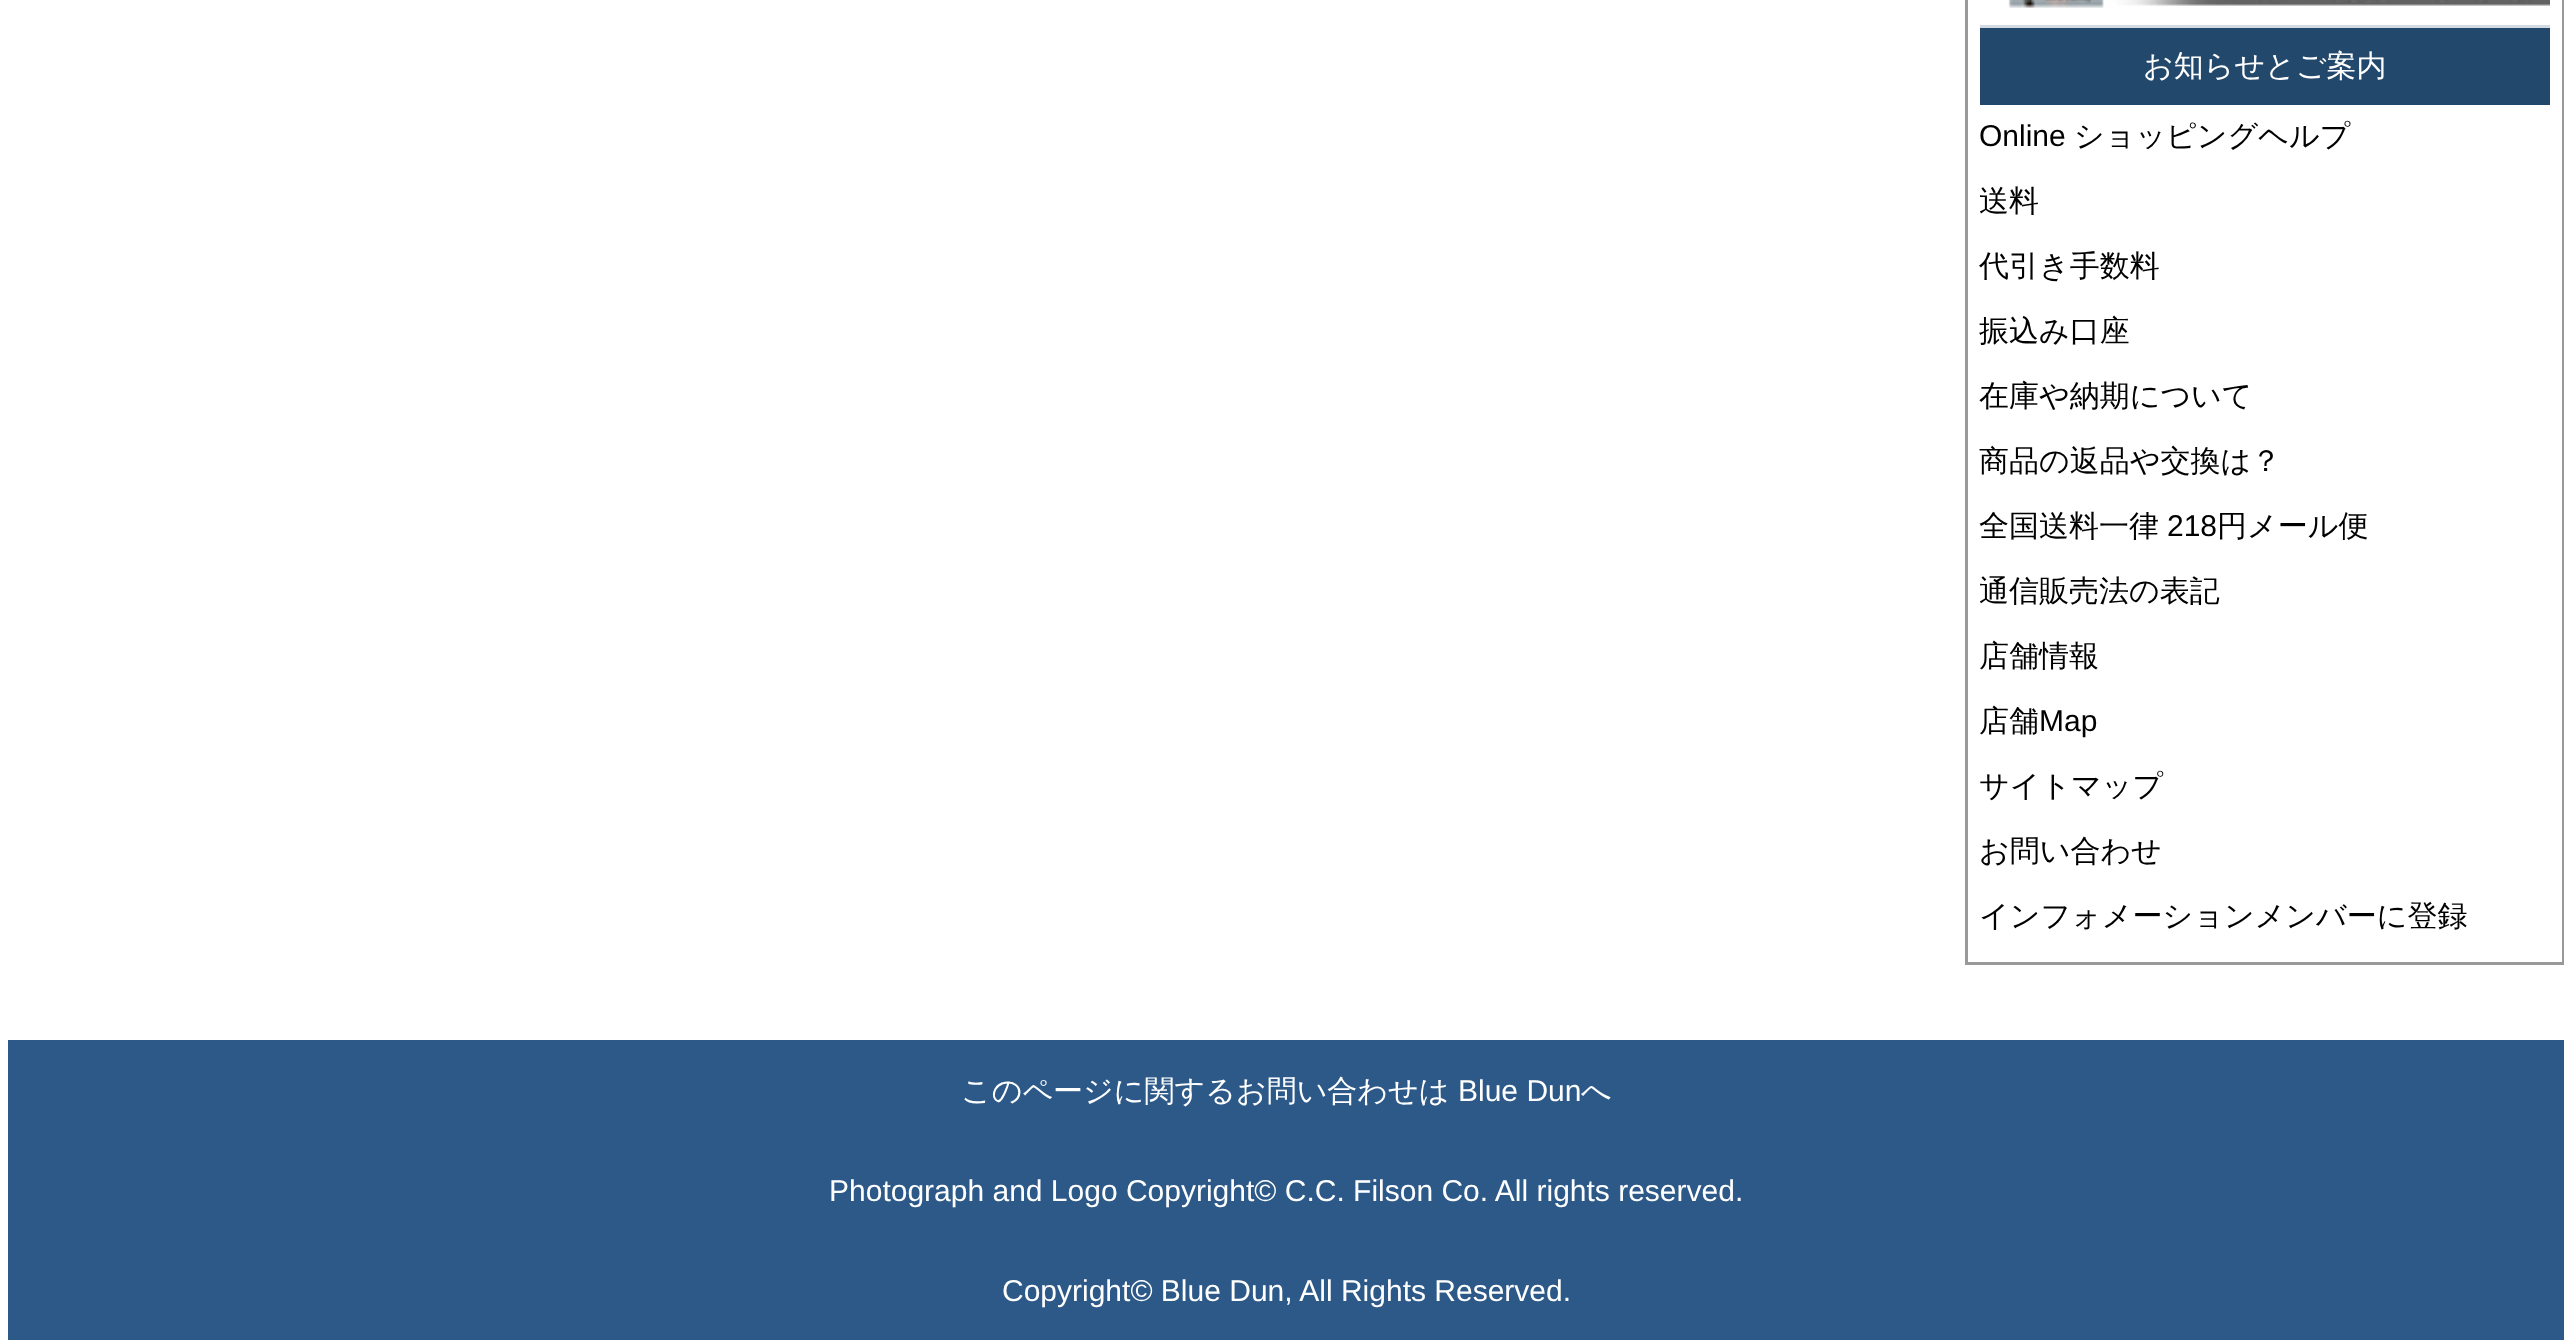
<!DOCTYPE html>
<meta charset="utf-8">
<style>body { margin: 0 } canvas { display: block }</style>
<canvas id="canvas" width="2564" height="1340"></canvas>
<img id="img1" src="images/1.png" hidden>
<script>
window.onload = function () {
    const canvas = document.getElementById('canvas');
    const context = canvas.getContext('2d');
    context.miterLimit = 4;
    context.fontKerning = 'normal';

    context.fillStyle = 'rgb(255, 255, 255)';
    context.fillRect(0, 0, 2564, 1340);
    context.strokeStyle = 'rgb(153, 153, 153)';
    context.lineWidth = 3;
    context.strokeRect(1966.5, -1.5, 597, 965);
    context.drawImage(document.getElementById('img1'), 2008, 0, 542, 8);
    context.fillStyle = 'rgb(34, 72, 108)';
    context.fillRect(1980, 28, 570, 77);
    context.fillStyle = 'rgb(211, 218, 226)';
    context.fillRect(1980, 25, 570, 3);
    context.fillStyle = 'rgb(45, 89, 136)';
    context.fillRect(8, 1040, 2556, 300);
    context.font = '500 30px WenQuanYi Zen Hei';
    context.fillStyle = 'rgb(255, 255, 255)';
    context.fillText('お知らせとご案内', 2143, 76);
    context.font = '30px Liberation Sans';
    context.fillStyle = 'rgb(0, 0, 0)';
    context.fillText('Online', 1979, 146);
    context.font = '500 30px WenQuanYi Zen Hei';
    context.fillText('ショッピングヘルプ', 2074, 146);
    context.fillText('送料', 1979, 211);
    context.fillText('代引き手数料', 1979, 276);
    context.fillText('振込み口座', 1979, 341);
    context.fillText('在庫や納期について', 1979, 406);
    context.fillText('商品の返品や交換は？', 1979, 471);
    context.fillText('全国送料一律', 1979, 536);
    context.font = '30px Liberation Sans';
    context.fillText('218', 2167, 536);
    context.font = '500 30px WenQuanYi Zen Hei';
    context.fillText('円メール便', 2217, 536);
    context.fillText('通信販売法の表記', 1979, 601);
    context.fillText('店舗情報', 1979, 666);
    context.fillText('店舗', 1979, 731);
    context.font = '30px Liberation Sans';
    context.fillText('Map', 2039, 731);
    context.font = '500 30px WenQuanYi Zen Hei';
    context.fillText('サイトマップ', 1979, 796);
    context.fillText('お問い合わせ', 1979, 861);
    context.fillText('インフォメーションメンバーに登録', 1979, 926);
    context.fillStyle = 'rgb(255, 255, 255)';
    context.fillText('このページに関するお問い合わせは', 961, 1101);
    context.font = '30px Liberation Sans';
    context.fillText('Blue Dun', 1458, 1101);
    context.font = '500 30px WenQuanYi Zen Hei';
    context.fillText('へ', 1581, 1101);
    context.font = '30px Liberation Sans';
    context.fillText('Photograph and Logo Copyright© C.C. Filson Co. All rights reserved.', 829, 1201);
    context.fillText('Copyright© Blue Dun, All Rights Reserved.', 1002, 1301);
};
</script>
